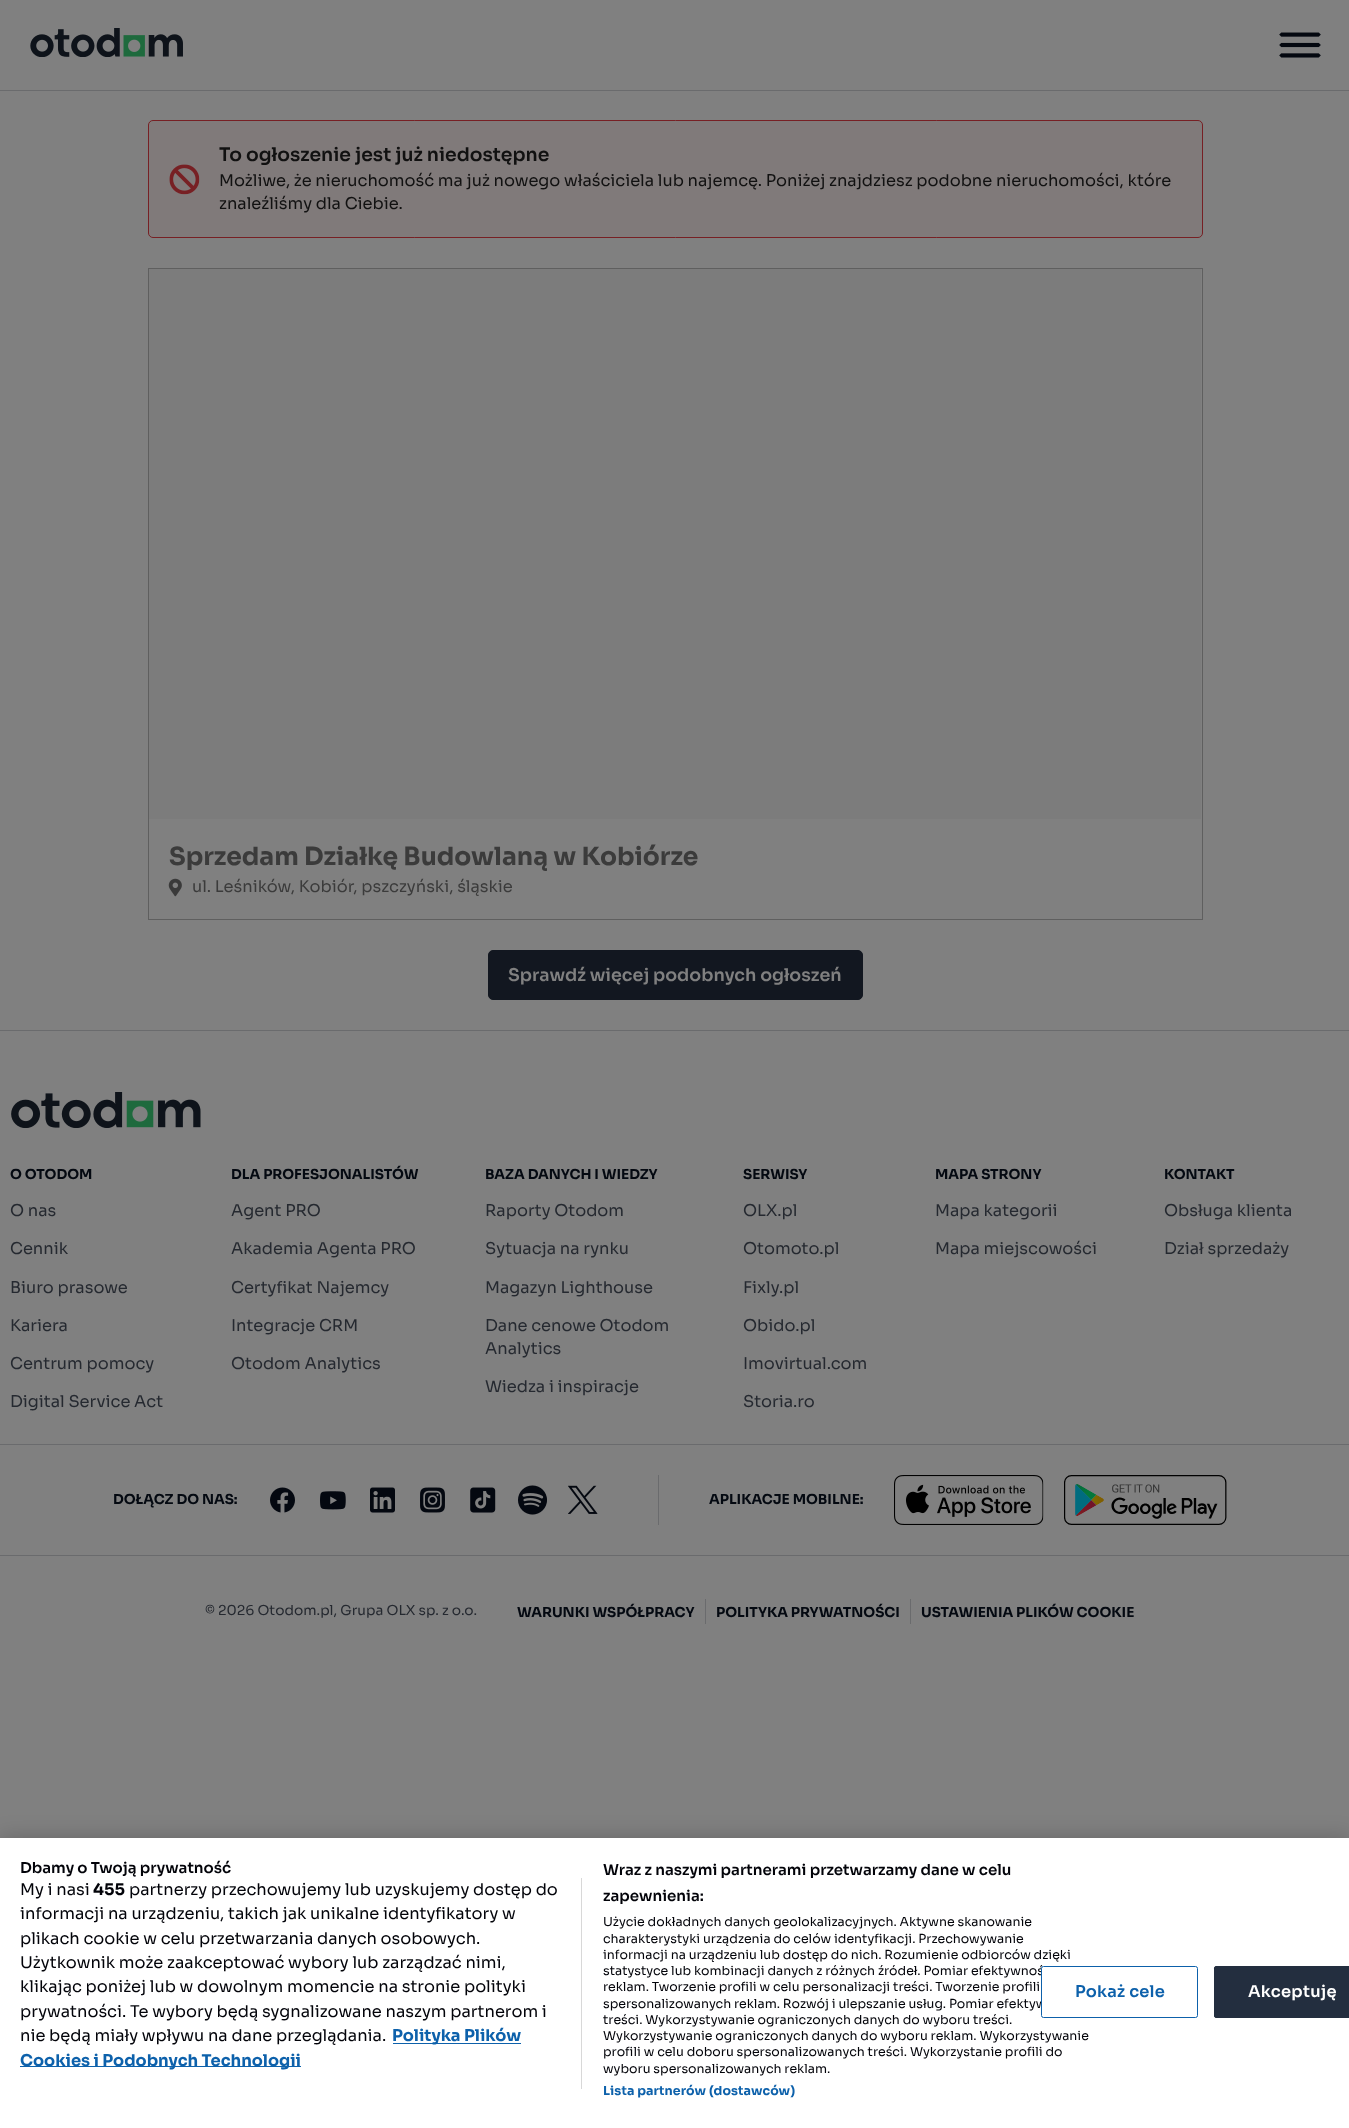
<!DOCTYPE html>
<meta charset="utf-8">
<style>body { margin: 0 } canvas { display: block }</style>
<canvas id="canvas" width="1349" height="2128"></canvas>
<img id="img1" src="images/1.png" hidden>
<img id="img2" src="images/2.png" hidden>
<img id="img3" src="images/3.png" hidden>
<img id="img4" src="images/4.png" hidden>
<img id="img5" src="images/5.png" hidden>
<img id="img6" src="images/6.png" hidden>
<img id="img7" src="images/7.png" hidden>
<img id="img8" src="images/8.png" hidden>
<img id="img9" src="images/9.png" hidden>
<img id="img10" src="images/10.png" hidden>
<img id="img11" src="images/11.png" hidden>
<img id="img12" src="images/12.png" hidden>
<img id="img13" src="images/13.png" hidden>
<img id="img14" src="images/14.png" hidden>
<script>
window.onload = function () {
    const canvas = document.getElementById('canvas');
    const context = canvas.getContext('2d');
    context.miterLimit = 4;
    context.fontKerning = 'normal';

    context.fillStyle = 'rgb(128, 128, 128)';
    context.fillRect(0, 0, 1349, 2128);
    context.fillStyle = 'rgb(106, 107, 109)';
    context.fillRect(0, 90, 1349, 1);
    context.drawImage(document.getElementById('img1'), 30, 28, 153, 29);
    context.drawImage(document.getElementById('img2'), 1279, 32, 42, 26);
    context.fillStyle = 'rgb(128, 122, 122)';
    context.beginPath();
    context.roundRect(148.5, 120.5, 1054, 117, 4.5);
    context.fill();
    context.strokeStyle = 'rgb(119, 32, 36)';
    context.stroke();
    context.drawImage(document.getElementById('img3'), 169, 164, 31, 31);
    context.strokeStyle = 'rgb(95, 95, 95)';
    context.strokeRect(148.5, 268.5, 1054, 651);
    context.fillStyle = 'rgb(124, 124, 124)';
    context.fillRect(149, 269, 1052, 550);
    context.drawImage(document.getElementById('img4'), 168, 878, 14, 19);
    context.fillStyle = 'rgb(18, 23, 32)';
    context.beginPath();
    context.roundRect(488.5, 950.5, 374, 49, 4.5);
    context.fill();
    context.strokeStyle = 'rgb(18, 23, 32)';
    context.stroke();
    context.fillStyle = 'rgb(106, 107, 109)';
    context.fillRect(0, 1030, 1349, 1);
    context.drawImage(document.getElementById('img5'), 11, 1092, 190, 36);
    context.fillRect(0, 1444, 1349, 1);
    context.fillRect(658, 1475, 1, 50);
    context.drawImage(document.getElementById('img6'), 270, 1487, 25, 26);
    context.drawImage(document.getElementById('img7'), 320, 1491, 26, 19);
    context.drawImage(document.getElementById('img8'), 370, 1487, 25, 26);
    context.drawImage(document.getElementById('img9'), 420, 1487, 25, 26);
    context.drawImage(document.getElementById('img10'), 470, 1487, 26, 26);
    context.drawImage(document.getElementById('img11'), 518, 1485, 29, 30);
    context.drawImage(document.getElementById('img12'), 568, 1485, 30, 29);
    context.drawImage(document.getElementById('img13'), 894, 1475, 150, 50);
    context.drawImage(document.getElementById('img14'), 1064, 1475, 163, 50);
    context.fillRect(0, 1555, 1349, 1);
    context.fillRect(705, 1599, 1, 25);
    context.fillRect(910, 1599, 1, 25);
    context.fillStyle = 'rgba(0, 0, 0, 0.2)';
    context.filter = 'blur(11px)';
    context.beginPath();
    context.rect(0, 1838, 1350, 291);
    context.fill();
    context.filter = 'none';
    context.fillStyle = 'rgb(255, 255, 255)';
    context.fillRect(0, 1838, 1349, 290);
    context.fillStyle = 'rgb(216, 216, 216)';
    context.fillRect(581, 1878, 1, 211);
    context.fillStyle = 'rgb(13, 97, 171)';
    context.fillRect(393, 2043, 128, 1);
    context.fillRect(20, 2066, 281, 1);
    context.fillStyle = 'rgb(35, 46, 63)';
    context.beginPath();
    context.moveTo(1216.5, 1966);
    context.lineTo(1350, 1966);
    context.lineTo(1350, 2018);
    context.lineTo(1216.5, 2018);
    context.bezierCurveTo(1215, 2018, 1214, 2017, 1214, 2015.5);
    context.lineTo(1214, 1968.5);
    context.bezierCurveTo(1214, 1967, 1215, 1966, 1216.5, 1966);
    context.closePath();
    context.fill();
    context.beginPath();
    context.roundRect(1214.5, 1966.5, 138, 51, 2);
    context.strokeStyle = 'rgb(35, 46, 63)';
    context.stroke();
    context.font = '600 18.75px Sora';
    context.fillStyle = 'rgb(17, 17, 17)';
    context.fillText('To ogłoszenie jest już niedostępne', 219, 161);
    context.font = '16.25px Sora';
    context.fillText('Możliwe, że nieruchomość ma już nowego właściciela lub najemcę. Poniżej znajdziesz podobne nieruchomości, które', 219, 186);
    context.fillText('znaleźliśmy dla Ciebie.', 219, 209);
    context.font = 'bold 25px Sora';
    context.fillStyle = 'rgb(59, 59, 59)';
    context.fillText('Sprzedam Działkę Budowlaną w Kobiórze', 169, 865);
    context.font = '16.25px Sora';
    context.fillText('ul. Leśników, Kobiór, pszczyński, śląskie', 192, 892);
    context.font = '600 17.5px Sora';
    context.fillStyle = 'rgb(128, 128, 128)';
    context.fillText('Sprawdź więcej podobnych ogłoszeń', 508, 981);
    context.font = 'bold 13.75px Sora';
    context.fillStyle = 'rgb(4, 9, 17)';
    context.fillText('O OTODOM', 10, 1179);
    context.font = '16.25px Sora';
    context.fillStyle = 'rgb(37, 41, 48)';
    context.fillText('O nas', 10, 1216);
    context.fillText('Cennik', 10, 1254);
    context.fillText('Biuro prasowe', 10, 1293);
    context.fillText('Kariera', 10, 1331);
    context.fillText('Centrum pomocy', 10, 1369);
    context.fillText('Digital Service Act', 10, 1407);
    context.font = 'bold 13.75px Sora';
    context.fillStyle = 'rgb(4, 9, 17)';
    context.fillText('DLA PROFESJONALISTÓW', 231, 1179);
    context.font = '16.25px Sora';
    context.fillStyle = 'rgb(37, 41, 48)';
    context.fillText('Agent PRO', 231, 1216);
    context.fillText('Akademia Agenta PRO', 231, 1254);
    context.fillText('Certyfikat Najemcy', 231, 1293);
    context.fillText('Integracje CRM', 231, 1331);
    context.fillText('Otodom Analytics', 231, 1369);
    context.font = 'bold 13.75px Sora';
    context.fillStyle = 'rgb(4, 9, 17)';
    context.fillText('BAZA DANYCH I WIEDZY', 485, 1179);
    context.font = '16.25px Sora';
    context.fillStyle = 'rgb(37, 41, 48)';
    context.fillText('Raporty Otodom', 485, 1216);
    context.fillText('Sytuacja na rynku', 485, 1254);
    context.fillText('Magazyn Lighthouse', 485, 1293);
    context.fillText('Dane cenowe Otodom', 485, 1331);
    context.fillText('Analytics', 485, 1354);
    context.fillText('Wiedza i inspiracje', 485, 1392);
    context.font = 'bold 13.75px Sora';
    context.fillStyle = 'rgb(4, 9, 17)';
    context.fillText('SERWISY', 743, 1179);
    context.font = '16.25px Sora';
    context.fillStyle = 'rgb(37, 41, 48)';
    context.fillText('OLX.pl', 743, 1216);
    context.fillText('Otomoto.pl', 743, 1254);
    context.fillText('Fixly.pl', 743, 1293);
    context.fillText('Obido.pl', 743, 1331);
    context.fillText('Imovirtual.com', 743, 1369);
    context.fillText('Storia.ro', 743, 1407);
    context.font = 'bold 13.75px Sora';
    context.fillStyle = 'rgb(4, 9, 17)';
    context.fillText('MAPA STRONY', 935, 1179);
    context.font = '16.25px Sora';
    context.fillStyle = 'rgb(37, 41, 48)';
    context.fillText('Mapa kategorii', 935, 1216);
    context.fillText('Mapa miejscowości', 935, 1254);
    context.font = 'bold 13.75px Sora';
    context.fillStyle = 'rgb(4, 9, 17)';
    context.fillText('KONTAKT', 1164, 1179);
    context.font = '16.25px Sora';
    context.fillStyle = 'rgb(37, 41, 48)';
    context.fillText('Obsługa klienta', 1164, 1216);
    context.fillText('Dział sprzedaży', 1164, 1254);
    context.font = 'bold 13.75px Sora';
    context.fillStyle = 'rgb(4, 9, 17)';
    context.fillText('DOŁĄCZ DO NAS:', 113, 1504);
    context.fillText('APLIKACJE MOBILNE:', 709, 1504);
    context.font = '13.75px Sora';
    context.fillStyle = 'rgb(37, 41, 48)';
    context.fillText('© 2026 Otodom.pl, Grupa OLX sp. z o.o.', 205, 1615);
    context.font = 'bold 13.75px Sora';
    context.fillStyle = 'rgb(4, 9, 17)';
    context.fillText('WARUNKI WSPÓŁPRACY', 517, 1617);
    context.fillText('POLITYKA PRYWATNOŚCI', 716, 1617);
    context.fillText('USTAWIENIA PLIKÓW COOKIE', 921, 1617);
    context.font = '600 15px Sora';
    context.fillStyle = 'rgb(2, 3, 9)';
    context.fillText('Dbamy o Twoją prywatność', 20, 1873);
    context.fillText('Wraz z naszymi partnerami przetwarzamy dane w celu', 603, 1875);
    context.fillText('zapewnienia:', 603, 1901);
    context.font = '12.5px Sora';
    context.fillText('Użycie dokładnych danych geolokalizacyjnych. Aktywne skanowanie', 603, 1926);
    context.fillText('charakterystyki urządzenia do celów identyfikacji. Przechowywanie', 603, 1943);
    context.fillText('informacji na urządzeniu lub dostęp do nich. Rozumienie odbiorców dzięki', 603, 1959);
    context.fillText('statystyce lub kombinacji danych z różnych źródeł. Pomiar efektywnoś', 603, 1975);
    context.fillText('reklam. Tworzenie profili w celu personalizacji treści. Tworzenie profili', 603, 1991);
    context.fillText('spersonalizowanych reklam. Rozwój i ulepszanie usług. Pomiar efektyw', 603, 2008);
    context.fillText('treści. Wykorzystywanie ograniczonych danych do wyboru treści.', 603, 2024);
    context.fillText('Wykorzystywanie ograniczonych danych do wyboru reklam. Wykorzystywanie', 603, 2040);
    context.fillText('profili w celu doboru spersonalizowanych treści. Wykorzystanie profili do', 603, 2056);
    context.fillText('wyboru spersonalizowanych reklam.', 603, 2073);
    context.letterSpacing = '0.1px';
    context.font = 'bold 12.5px Sora';
    context.fillStyle = 'rgb(13, 97, 171)';
    context.fillText('Lista partnerów (dostawców)', 603, 2095);
    context.letterSpacing = '0px';
    context.font = '16.25px Sora';
    context.fillStyle = 'rgb(2, 3, 9)';
    context.fillText('My i nasi', 20, 1895);
    context.font = 'bold 16.25px Sora';
    context.fillText('455', 93, 1895);
    context.font = '16.25px Sora';
    context.fillText('partnerzy przechowujemy lub uzyskujemy dostęp do', 129, 1895);
    context.fillText('informacji na urządzeniu, takich jak unikalne identyfikatory w', 20, 1919);
    context.fillText('plikach cookie w celu przetwarzania danych osobowych.', 20, 1944);
    context.fillText('Użytkownik może zaakceptować wybory lub zarządzać nimi,', 20, 1968);
    context.fillText('klikając poniżej lub w dowolnym momencie na stronie polityki', 20, 1992);
    context.fillText('prywatności. Te wybory będą sygnalizowane naszym partnerom i', 20, 2017);
    context.fillText('nie będą miały wpływu na dane przeglądania.', 20, 2041);
    context.font = 'bold 16.25px Sora';
    context.fillStyle = 'rgb(13, 97, 171)';
    context.fillText('Polityka Plików', 392, 2041);
    context.fillText('Cookies i Podobnych Technologii', 20, 2066);
    context.fillStyle = 'rgb(255, 255, 255)';
    context.beginPath();
    context.roundRect(1041.5, 1966.5, 156, 51, 2);
    context.fill();
    context.strokeStyle = 'rgb(13, 97, 171)';
    context.stroke();
    context.letterSpacing = '0.25px';
    context.font = '600 16.25px Sora';
    context.fillStyle = 'rgb(13, 97, 171)';
    context.fillText('Pokaż cele', 1075, 1997);
    context.fillStyle = 'rgb(255, 255, 255)';
    context.fillText('Akceptuję', 1248, 1997);
};
</script>
